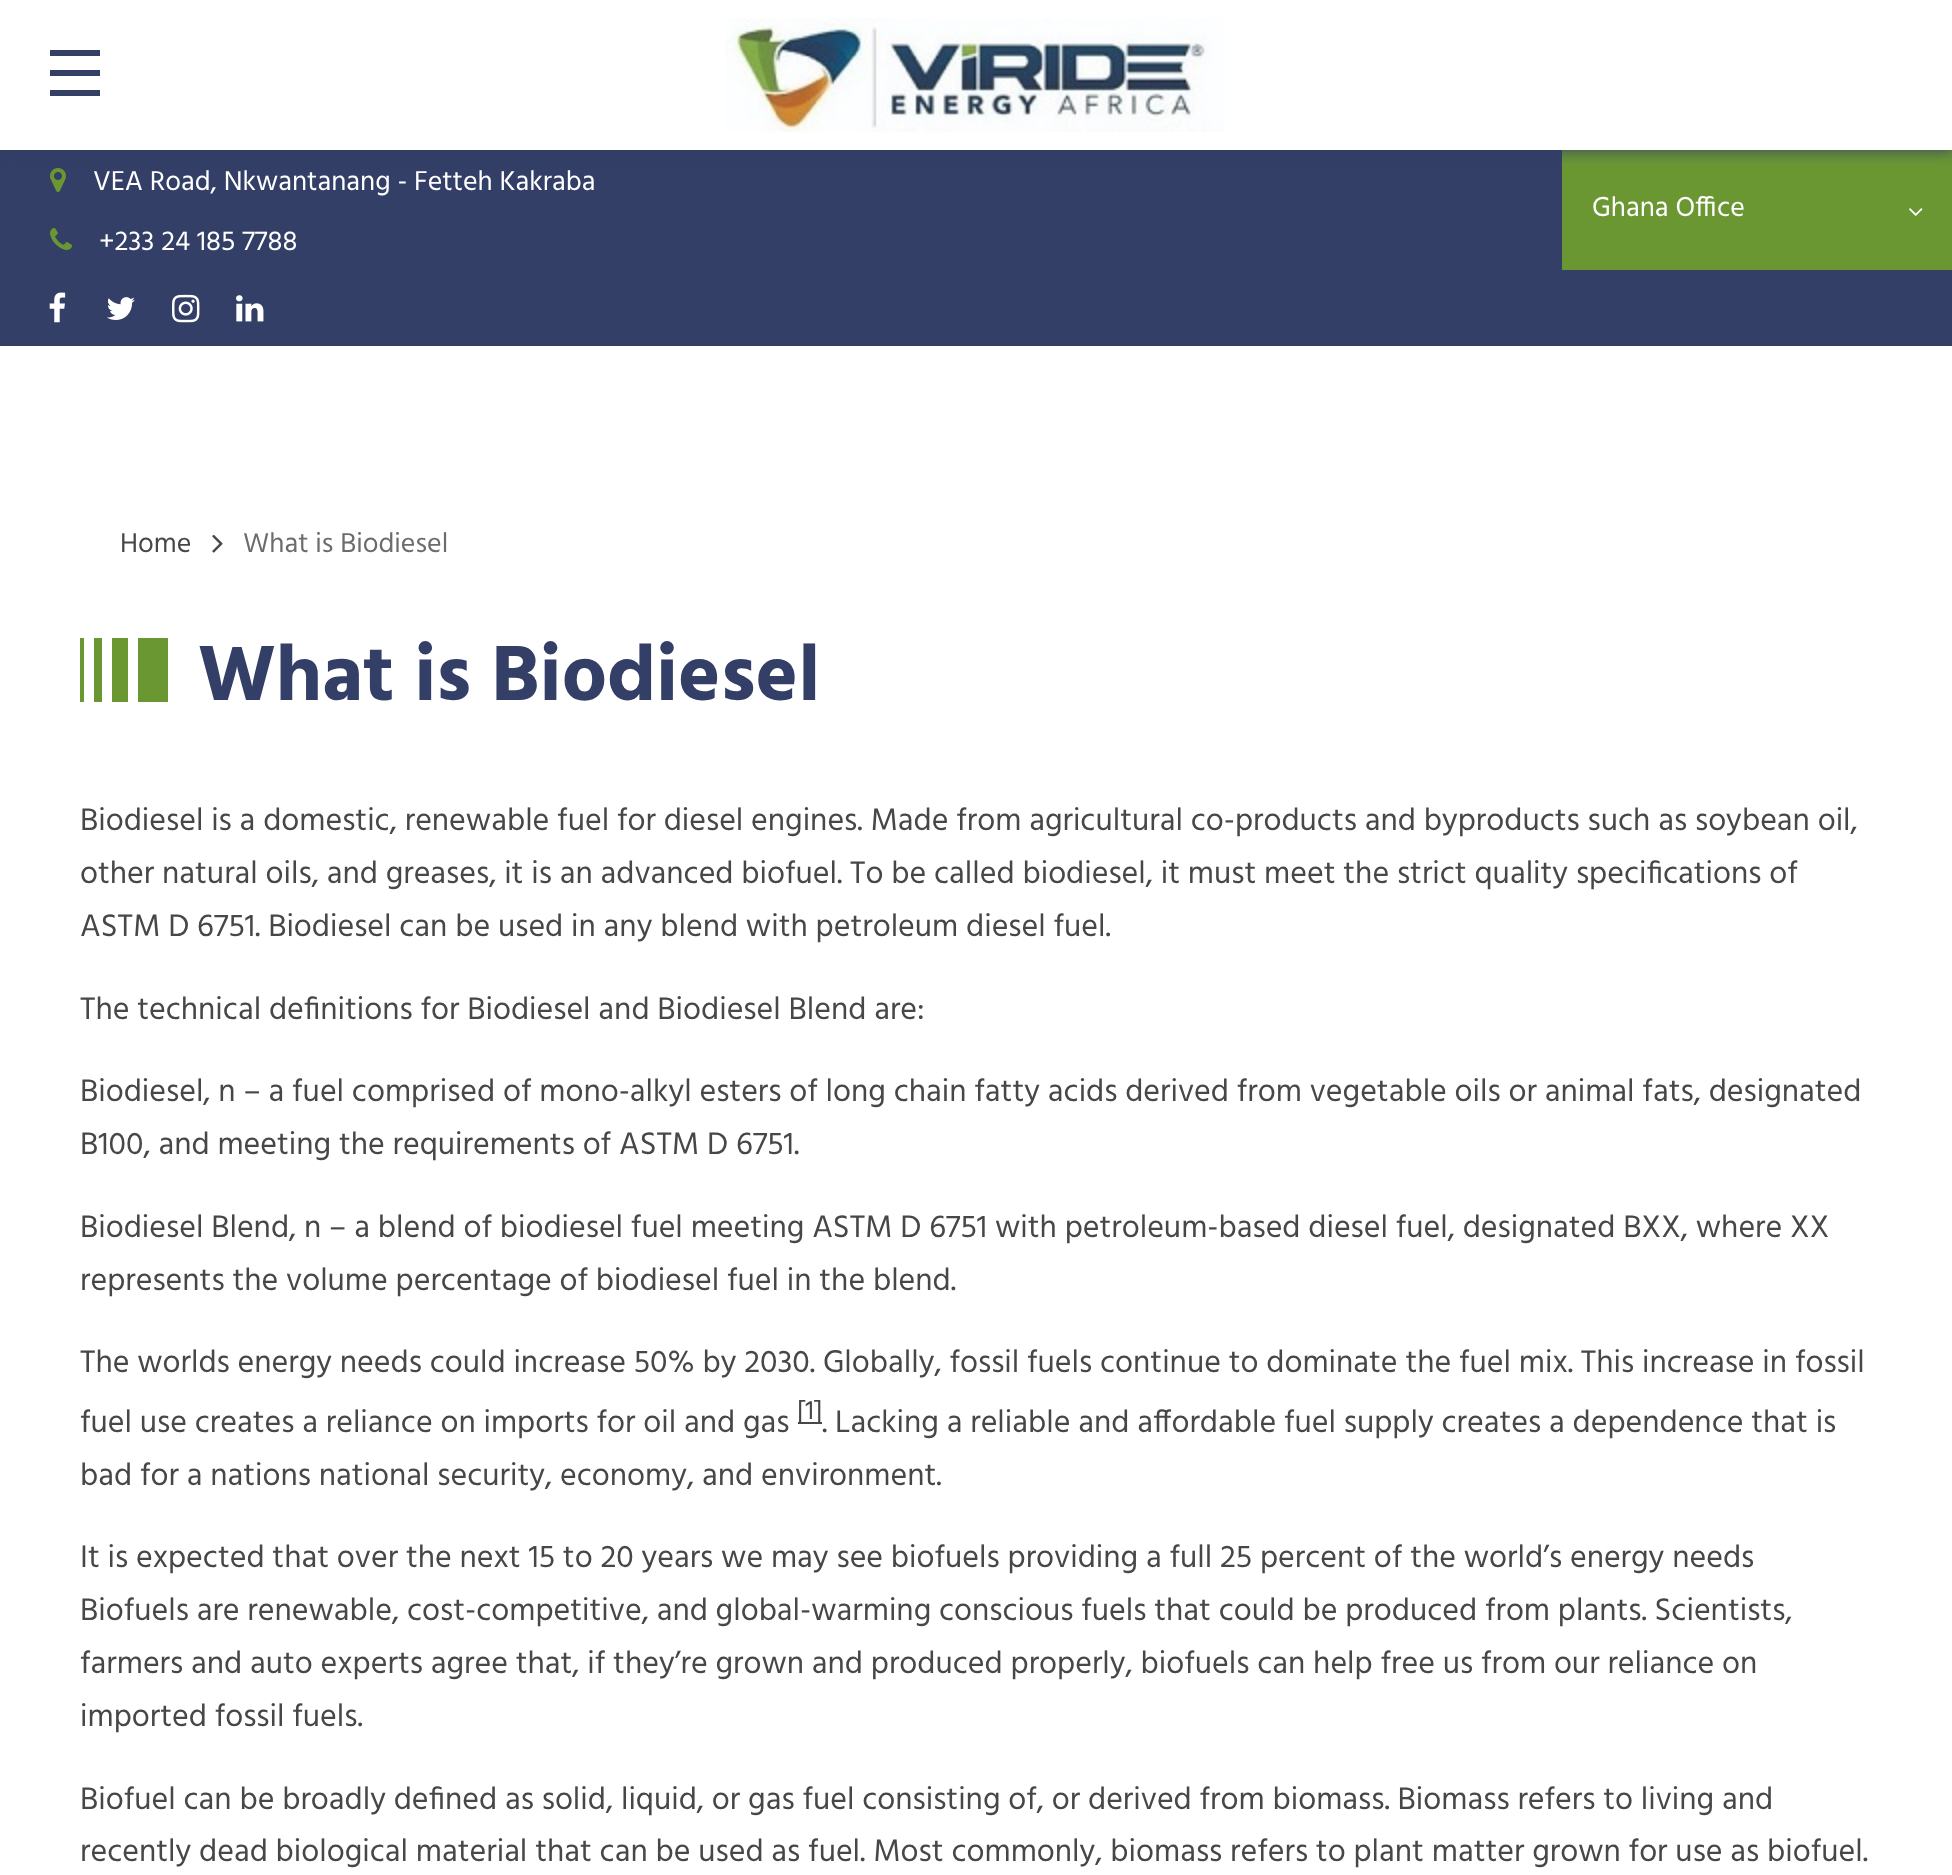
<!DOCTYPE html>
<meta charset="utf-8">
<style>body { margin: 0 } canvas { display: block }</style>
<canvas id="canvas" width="1952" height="1875"></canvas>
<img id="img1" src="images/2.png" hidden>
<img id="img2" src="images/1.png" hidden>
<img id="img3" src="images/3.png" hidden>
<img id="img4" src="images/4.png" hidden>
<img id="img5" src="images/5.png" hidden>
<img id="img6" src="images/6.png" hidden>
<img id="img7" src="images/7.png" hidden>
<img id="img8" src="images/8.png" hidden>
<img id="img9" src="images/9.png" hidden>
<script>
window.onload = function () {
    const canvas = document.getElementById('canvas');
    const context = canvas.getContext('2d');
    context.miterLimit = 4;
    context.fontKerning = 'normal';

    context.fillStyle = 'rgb(255, 255, 255)';
    context.fillRect(0, 0, 1952, 1875);
    context.fillStyle = 'rgb(51, 63, 102)';
    context.fillRect(0, 150, 1952, 196);
    context.drawImage(document.getElementById('img1'), 50, 168, 16, 24);
    context.fillStyle = 'rgb(107, 151, 51)';
    context.fillRect(1562, 150, 390, 120);
    context.fillStyle = 'rgb(51, 63, 102)';
    context.filter = 'blur(8px)';
    context.beginPath();
    context.rect(-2, -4, 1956, 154);
    context.fill();
    context.filter = 'none';
    context.fillStyle = 'rgb(255, 255, 255)';
    context.fillRect(0, 0, 1952, 150);
    context.fillStyle = 'rgb(51, 63, 102)';
    context.fillRect(50, 50, 50, 6);
    context.fillRect(50, 70, 50, 6);
    context.fillRect(50, 90, 50, 6);
    context.drawImage(document.getElementById('img2'), 726, 18, 498, 114);
    context.drawImage(document.getElementById('img3'), 50, 228, 22, 22);
    context.drawImage(document.getElementById('img4'), 1909, 208, 14, 8);
    context.drawImage(document.getElementById('img5'), 49, 292, 17, 31);
    context.drawImage(document.getElementById('img6'), 107, 297, 28, 23);
    context.drawImage(document.getElementById('img7'), 172, 294, 28, 29);
    context.drawImage(document.getElementById('img8'), 236, 295, 28, 27);
    context.drawImage(document.getElementById('img9'), 212, 534, 11, 19);
    context.fillStyle = 'rgb(107, 151, 51)';
    context.fillRect(80, 638, 4, 64);
    context.fillRect(94, 638, 8, 64);
    context.fillRect(112, 638, 16, 64);
    context.fillRect(138, 638, 30, 64);
    context.fillStyle = 'rgb(71, 71, 71)';
    context.fillRect(798, 1422, 24, 2);
    context.font = '28px Hind';
    context.fillStyle = 'rgb(255, 255, 255)';
    context.fillText('VEA Road, Nkwantanang - Fetteh Kakraba', 93, 190);
    context.fillText('+233 24 185 7788', 99, 250);
    context.fillText('Ghana Office', 1592, 216);
    context.fillStyle = 'rgb(71, 71, 71)';
    context.fillText('Home', 120, 552);
    context.fillStyle = 'rgb(108, 108, 108)';
    context.fillText('What is Biodiesel', 243, 552);
    context.font = 'bold 80px Hind';
    context.fillStyle = 'rgb(51, 63, 102)';
    context.fillText('What is Biodiesel', 198, 700);
    context.font = '32px Hind';
    context.fillStyle = 'rgb(71, 71, 71)';
    context.fillText('Biodiesel is a domestic, renewable fuel for diesel engines. Made from agricultural co-products and byproducts such as soybean oil,', 80, 830);
    context.fillText('other natural oils, and greases, it is an advanced biofuel. To be called biodiesel, it must meet the strict quality specifications of', 80, 883);
    context.fillText('ASTM D 6751. Biodiesel can be used in any blend with petroleum diesel fuel.', 80, 936);
    context.fillText('The technical definitions for Biodiesel and Biodiesel Blend are:', 80, 1019);
    context.fillText('Biodiesel, n – a fuel comprised of mono-alkyl esters of long chain fatty acids derived from vegetable oils or animal fats, designated', 80, 1101);
    context.fillText('B100, and meeting the requirements of ASTM D 6751.', 80, 1154);
    context.fillText('Biodiesel Blend, n – a blend of biodiesel fuel meeting ASTM D 6751 with petroleum-based diesel fuel, designated BXX, where XX', 80, 1237);
    context.fillText('represents the volume percentage of biodiesel fuel in the blend.', 80, 1290);
    context.fillText('The worlds energy needs could increase 50% by 2030. Globally, fossil fuels continue to dominate the fuel mix. This increase in fossil', 80, 1372);
    context.fillText('fuel use creates a reliance on imports for oil and gas', 80, 1432);
    context.font = '27px Hind';
    context.fillText('[1]', 797, 1419);
    context.font = '32px Hind';
    context.fillText('. Lacking a reliable and affordable fuel supply creates a dependence that is', 822, 1432);
    context.fillText('bad for a nations national security, economy, and environment.', 80, 1485);
    context.fillText('It is expected that over the next 15 to 20 years we may see biofuels providing a full 25 percent of the world’s energy needs', 80, 1567);
    context.fillText('Biofuels are renewable, cost-competitive, and global-warming conscious fuels that could be produced from plants. Scientists,', 80, 1620);
    context.fillText('farmers and auto experts agree that, if they’re grown and produced properly, biofuels can help free us from our reliance on', 80, 1673);
    context.fillText('imported fossil fuels.', 80, 1726);
    context.fillText('Biofuel can be broadly defined as solid, liquid, or gas fuel consisting of, or derived from biomass. Biomass refers to living and', 80, 1809);
    context.fillText('recently dead biological material that can be used as fuel. Most commonly, biomass refers to plant matter grown for use as biofuel.', 80, 1861);
};
</script>
